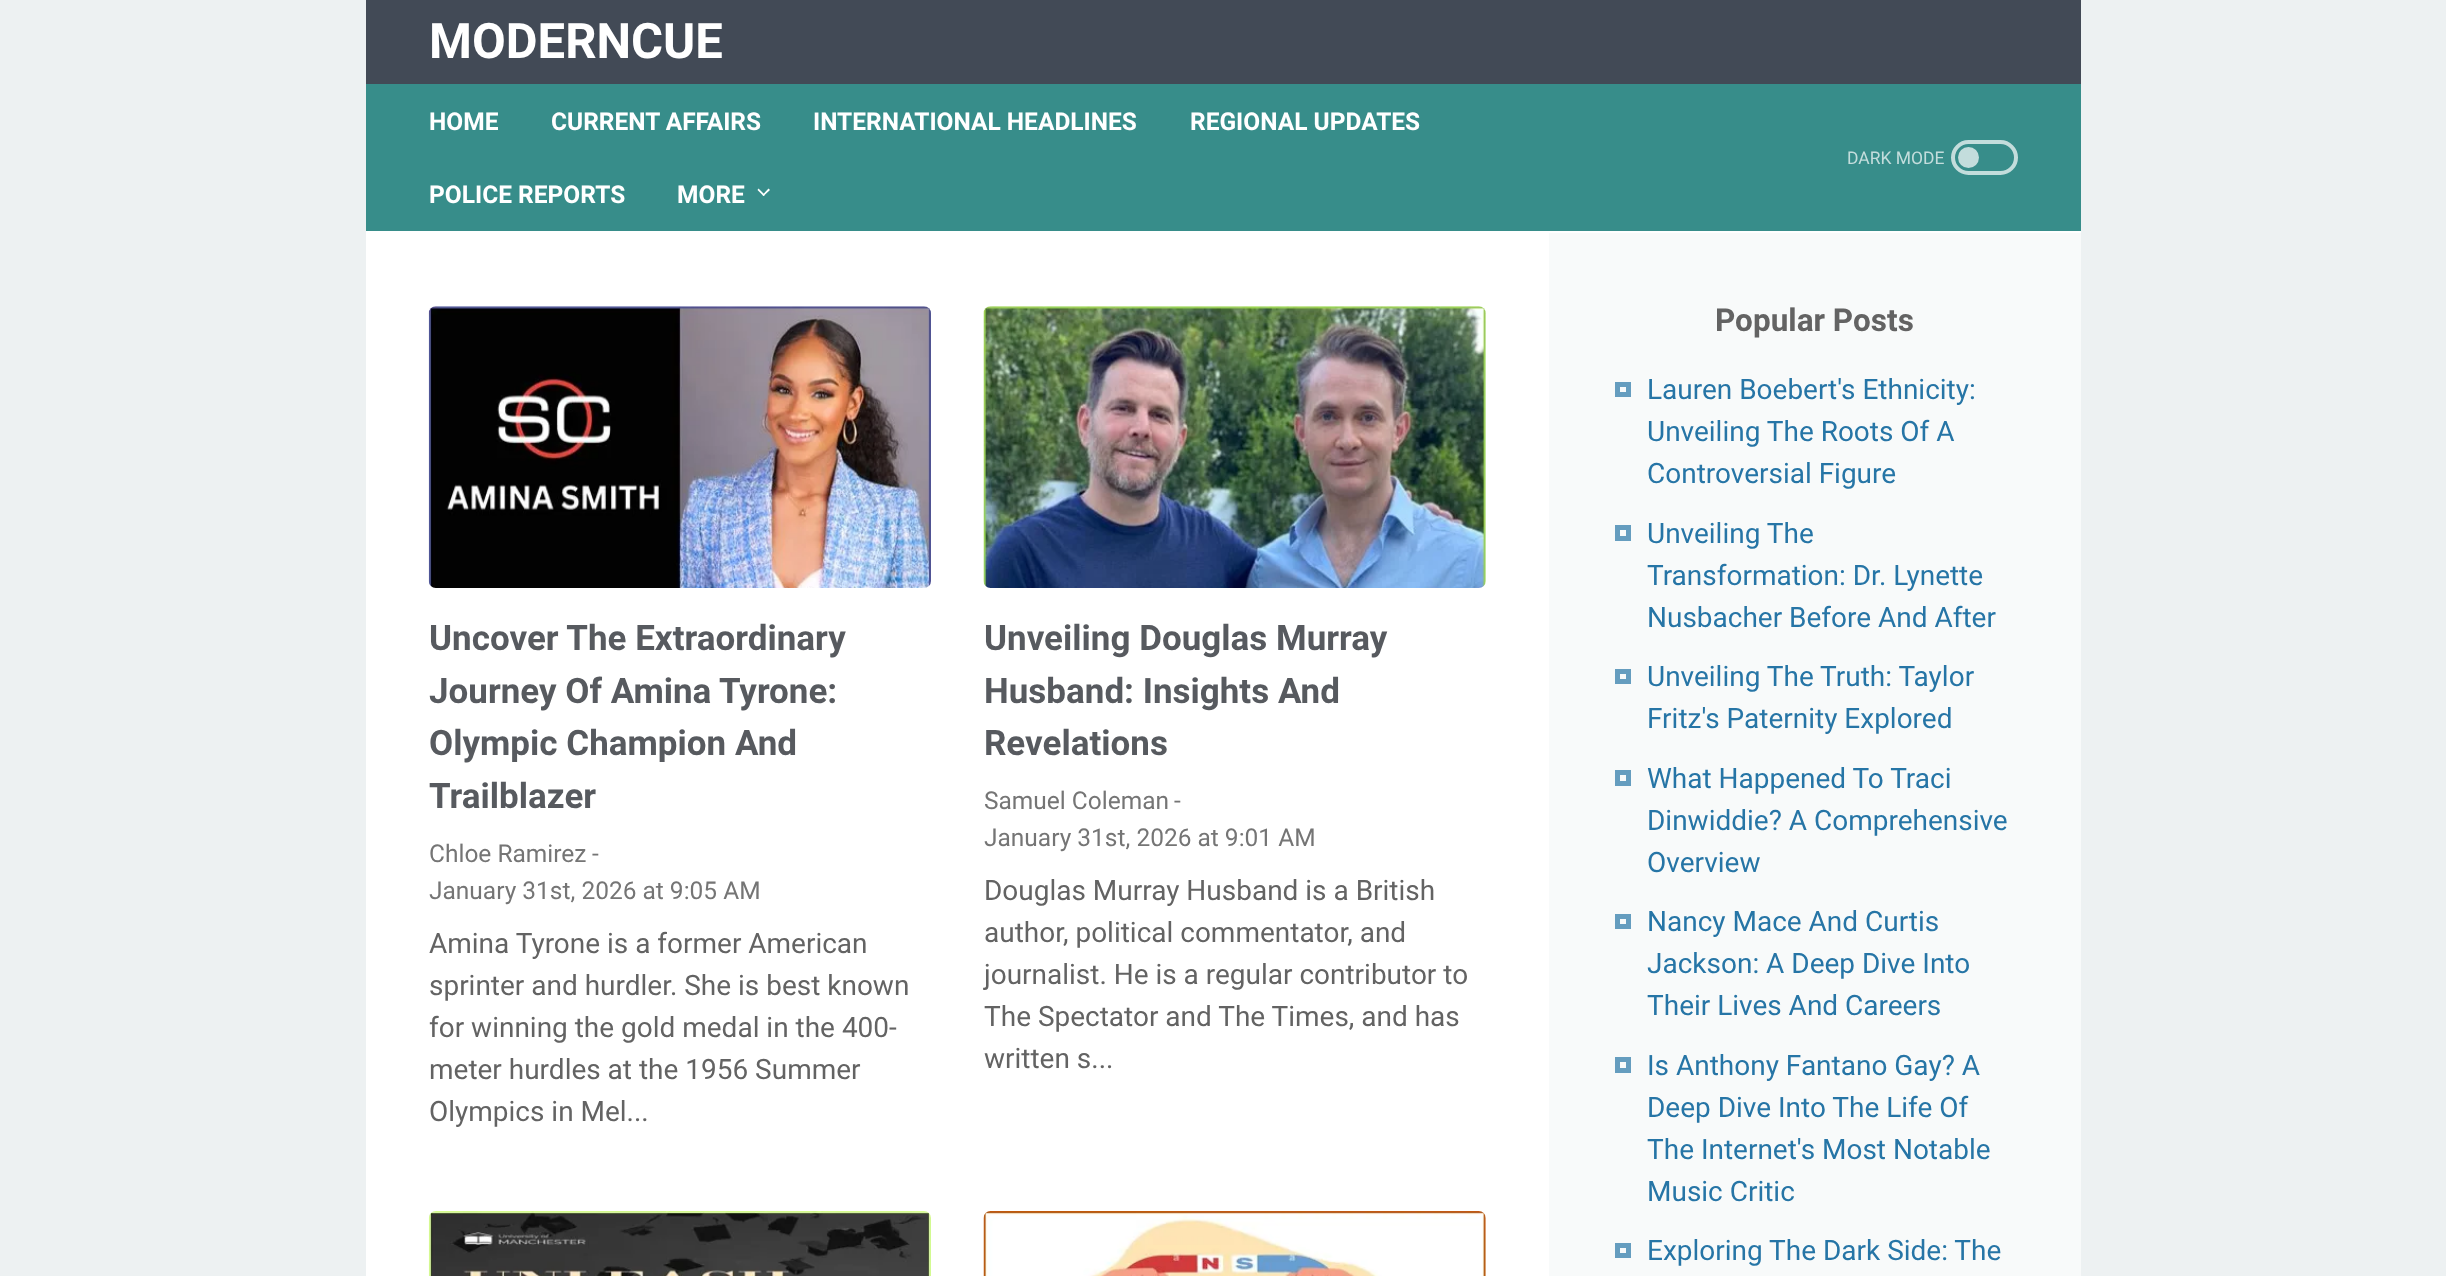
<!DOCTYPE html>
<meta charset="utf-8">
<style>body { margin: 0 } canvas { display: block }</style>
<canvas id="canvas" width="2446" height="1276"></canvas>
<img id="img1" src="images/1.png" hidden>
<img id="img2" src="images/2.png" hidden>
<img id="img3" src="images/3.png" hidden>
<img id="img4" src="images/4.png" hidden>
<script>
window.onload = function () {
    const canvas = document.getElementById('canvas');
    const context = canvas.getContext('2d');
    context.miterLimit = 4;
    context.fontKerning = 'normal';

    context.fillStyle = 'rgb(237, 241, 242)';
    context.fillRect(0, 0, 2446, 1276);
    context.fillStyle = 'rgb(66, 74, 86)';
    context.fillRect(366, 0, 1715, 84);
    context.fillStyle = 'rgb(55, 141, 138)';
    context.fillRect(366, 84, 1715, 147);
    context.fillStyle = 'rgb(255, 255, 255)';
    context.beginPath();
    context.moveTo(762.5, 195);
    context.lineTo(768.5, 188.5);
    context.lineTo(770, 190);
    context.lineTo(763.5, 196);
    context.closePath();
    context.fill();
    context.beginPath();
    context.moveTo(757.5, 190);
    context.lineTo(758.5, 188.5);
    context.lineTo(765, 195);
    context.lineTo(763.5, 196);
    context.closePath();
    context.fill();
    context.beginPath();
    context.roundRect(1953, 142, 63, 31, 15.5);
    context.strokeStyle = 'rgb(195, 221, 220)';
    context.lineWidth = 4;
    context.stroke();
    context.fillStyle = 'rgb(195, 221, 220)';
    context.beginPath();
    context.arc(1968.5, 157.5, 10.5, 0, 2 * Math.PI);
    context.fill();
    context.fillStyle = 'rgb(255, 255, 255)';
    context.fillRect(366, 231, 1715, 1045);
    context.drawImage(document.getElementById('img1'), 428, 306, 503, 282);
    context.drawImage(document.getElementById('img2'), 983, 306, 503, 282);
    context.drawImage(document.getElementById('img3'), 428, 1211, 503, 65);
    context.drawImage(document.getElementById('img4'), 983, 1211, 503, 65);
    context.fillStyle = 'rgb(248, 250, 250)';
    context.fillRect(1549, 233, 532, 1043);
    context.strokeStyle = 'rgb(101, 157, 191)';
    context.lineWidth = 5;
    context.strokeRect(1617.5, 384.5, 11, 10);
    context.strokeRect(1617.5, 527.5, 11, 11);
    context.strokeRect(1617.5, 671.5, 11, 10);
    context.strokeRect(1617.5, 772.5, 11, 11);
    context.strokeRect(1617.5, 916.5, 11, 10);
    context.strokeRect(1617.5, 1059.5, 11, 11);
    context.strokeRect(1617.5, 1245.5, 11, 10);
    context.font = 'bold 49px Roboto';
    context.fillStyle = 'rgb(255, 255, 255)';
    context.fillText('MODERNCUE', 429, 58);
    context.font = 'bold 24.5px Roboto';
    context.fillText('HOME', 429, 130);
    context.fillText('CURRENT AFFAIRS', 551, 130);
    context.fillText('INTERNATIONAL HEADLINES', 813, 130);
    context.fillText('REGIONAL UPDATES', 1190, 130);
    context.fillText('POLICE REPORTS', 429, 203);
    context.fillText('MORE', 677, 203);
    context.font = '17.5px Roboto';
    context.fillStyle = 'rgb(195, 221, 220)';
    context.fillText('DARK MODE', 1847, 164);
    context.font = 'bold 35px Roboto';
    context.fillStyle = 'rgb(87, 90, 95)';
    context.fillText('Uncover The Extraordinary', 429, 650);
    context.fillText('Journey Of Amina Tyrone:', 429, 703);
    context.fillText('Olympic Champion And', 429, 755);
    context.fillText('Trailblazer', 429, 808);
    context.font = '24.5px Roboto';
    context.fillStyle = 'rgb(117, 117, 117)';
    context.fillText('Chloe Ramirez', 429, 862);
    context.fillText('-', 592, 862);
    context.fillText('January 31st, 2026 at 9:05 AM', 429, 899);
    context.font = '28px Roboto';
    context.fillStyle = 'rgb(99, 99, 99)';
    context.fillText('Amina Tyrone is a former American', 429, 953);
    context.fillText('sprinter and hurdler. She is best known', 429, 995);
    context.fillText('for winning the gold medal in the 400-', 429, 1037);
    context.fillText('meter hurdles at the 1956 Summer', 429, 1079);
    context.fillText('Olympics in Mel...', 429, 1121);
    context.font = 'bold 35px Roboto';
    context.fillStyle = 'rgb(87, 90, 95)';
    context.fillText('Unveiling Douglas Murray', 984, 650);
    context.fillText('Husband: Insights And', 984, 703);
    context.fillText('Revelations', 984, 755);
    context.font = '24.5px Roboto';
    context.fillStyle = 'rgb(117, 117, 117)';
    context.fillText('Samuel Coleman', 984, 809);
    context.fillText('-', 1174, 809);
    context.fillText('January 31st, 2026 at 9:01 AM', 984, 846);
    context.font = '28px Roboto';
    context.fillStyle = 'rgb(99, 99, 99)';
    context.fillText('Douglas Murray Husband is a British', 984, 900);
    context.fillText('author, political commentator, and', 984, 942);
    context.fillText('journalist. He is a regular contributor to', 984, 984);
    context.fillText('The Spectator and The Times, and has', 984, 1026);
    context.fillText('written s...', 984, 1068);
    context.font = 'bold 31.5px Roboto';
    context.fillText('Popular Posts', 1715, 331);
    context.font = '28px Roboto';
    context.fillStyle = 'rgb(38, 117, 166)';
    context.fillText('Lauren Boebert\'s Ethnicity:', 1647, 399);
    context.fillText('Unveiling The Roots Of A', 1647, 441);
    context.fillText('Controversial Figure', 1647, 483);
    context.fillText('Unveiling The', 1647, 543);
    context.fillText('Transformation: Dr. Lynette', 1647, 585);
    context.fillText('Nusbacher Before And After', 1647, 627);
    context.fillText('Unveiling The Truth: Taylor', 1647, 686);
    context.fillText('Fritz\'s Paternity Explored', 1647, 728);
    context.fillText('What Happened To Traci', 1647, 788);
    context.fillText('Dinwiddie? A Comprehensive', 1647, 830);
    context.fillText('Overview', 1647, 872);
    context.fillText('Nancy Mace And Curtis', 1647, 931);
    context.fillText('Jackson: A Deep Dive Into', 1647, 973);
    context.fillText('Their Lives And Careers', 1647, 1015);
    context.fillText('Is Anthony Fantano Gay? A', 1647, 1075);
    context.fillText('Deep Dive Into The Life Of', 1647, 1117);
    context.fillText('The Internet\'s Most Notable', 1647, 1159);
    context.fillText('Music Critic', 1647, 1201);
    context.fillText('Exploring The Dark Side: The', 1647, 1260);
};
</script>
